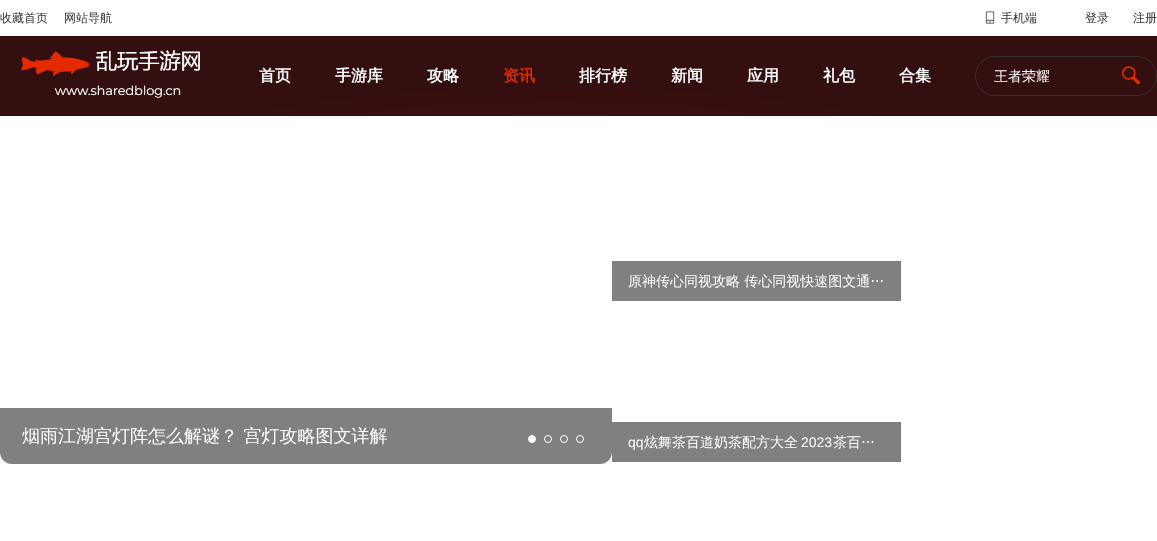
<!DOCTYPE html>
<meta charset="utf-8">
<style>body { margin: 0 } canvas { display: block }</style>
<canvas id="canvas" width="1157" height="541"></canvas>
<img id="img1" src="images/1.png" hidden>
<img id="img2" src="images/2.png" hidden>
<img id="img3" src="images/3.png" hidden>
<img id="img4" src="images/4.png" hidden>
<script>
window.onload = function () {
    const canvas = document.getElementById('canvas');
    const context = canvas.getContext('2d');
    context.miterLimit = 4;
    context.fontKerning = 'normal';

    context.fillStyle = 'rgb(255, 255, 255)';
    context.fillRect(0, 0, 1157, 541);
    context.drawImage(document.getElementById('img1'), 985, 11, 10, 13);
    context.drawImage(document.getElementById('img2'), 0, 36, 1157, 80);
    context.drawImage(document.getElementById('img3'), 21, 50, 179, 48);
    context.beginPath();
    context.roundRect(975.5, 56.5, 181, 39, 19.5);
    context.strokeStyle = 'rgb(51, 51, 51)';
    context.stroke();
    context.drawImage(document.getElementById('img4'), 1122, 66, 18, 19);
    context.fillStyle = 'rgb(128, 128, 128)';
    context.beginPath();
    context.roundRect(0, 408, 612, 56, [0, 0, 12, 12]);
    context.fill();
    context.fillStyle = 'rgb(255, 255, 255)';
    context.beginPath();
    context.arc(532, 439, 3.5, 0, 2 * Math.PI);
    context.fill();
    context.strokeStyle = 'rgb(255, 255, 255)';
    context.stroke();
    context.beginPath();
    context.arc(548, 439, 3.5, 0, 2 * Math.PI);
    context.stroke();
    context.beginPath();
    context.arc(564, 439, 3.5, 0, 2 * Math.PI);
    context.stroke();
    context.beginPath();
    context.arc(580, 439, 3.5, 0, 2 * Math.PI);
    context.stroke();
    context.fillStyle = 'rgb(128, 128, 128)';
    context.fillRect(612, 261, 289, 40);
    context.fillRect(612, 422, 289, 40);
    context.font = '500 12px WenQuanYi Zen Hei';
    context.fillStyle = 'rgb(51, 51, 51)';
    context.fillText('收藏首页', 0, 22);
    context.fillText('网站导航', 64, 22);
    context.fillText('手机端', 1001, 22);
    context.fillText('登录', 1085, 22);
    context.fillText('注册', 1133, 22);
    context.font = 'bold 16px WenQuanYi Zen Hei';
    context.fillStyle = 'rgb(255, 255, 255)';
    context.fillText('首页', 259, 81);
    context.fillText('手游库', 335, 81);
    context.fillText('攻略', 427, 81);
    context.fillStyle = 'rgb(229, 42, 0)';
    context.fillText('资讯', 503, 81);
    context.fillStyle = 'rgb(255, 255, 255)';
    context.fillText('排行榜', 579, 81);
    context.fillText('新闻', 671, 81);
    context.fillText('应用', 747, 81);
    context.fillText('礼包', 823, 81);
    context.fillText('合集', 899, 81);
    context.font = '500 14px WenQuanYi Zen Hei';
    context.fillText('王者荣耀', 994, 81);
    context.font = '500 18px WenQuanYi Zen Hei';
    context.fillText('烟雨江湖宫灯阵怎么解谜？ 宫灯攻略图文详解', 22, 442);
    context.font = '500 14px WenQuanYi Zen Hei';
    context.fillText('原神传心同视攻略 传心同视快速图文通…', 628, 286);
    context.font = '14px Liberation Sans';
    context.fillText('qq', 628, 447);
    context.font = '500 14px WenQuanYi Zen Hei';
    context.fillText('炫舞茶百道奶茶配方大全', 644, 447);
    context.font = '14px Liberation Sans';
    context.fillText('2023', 801, 447);
    context.font = '500 14px WenQuanYi Zen Hei';
    context.fillText('茶百…', 833, 447);
};
</script>
